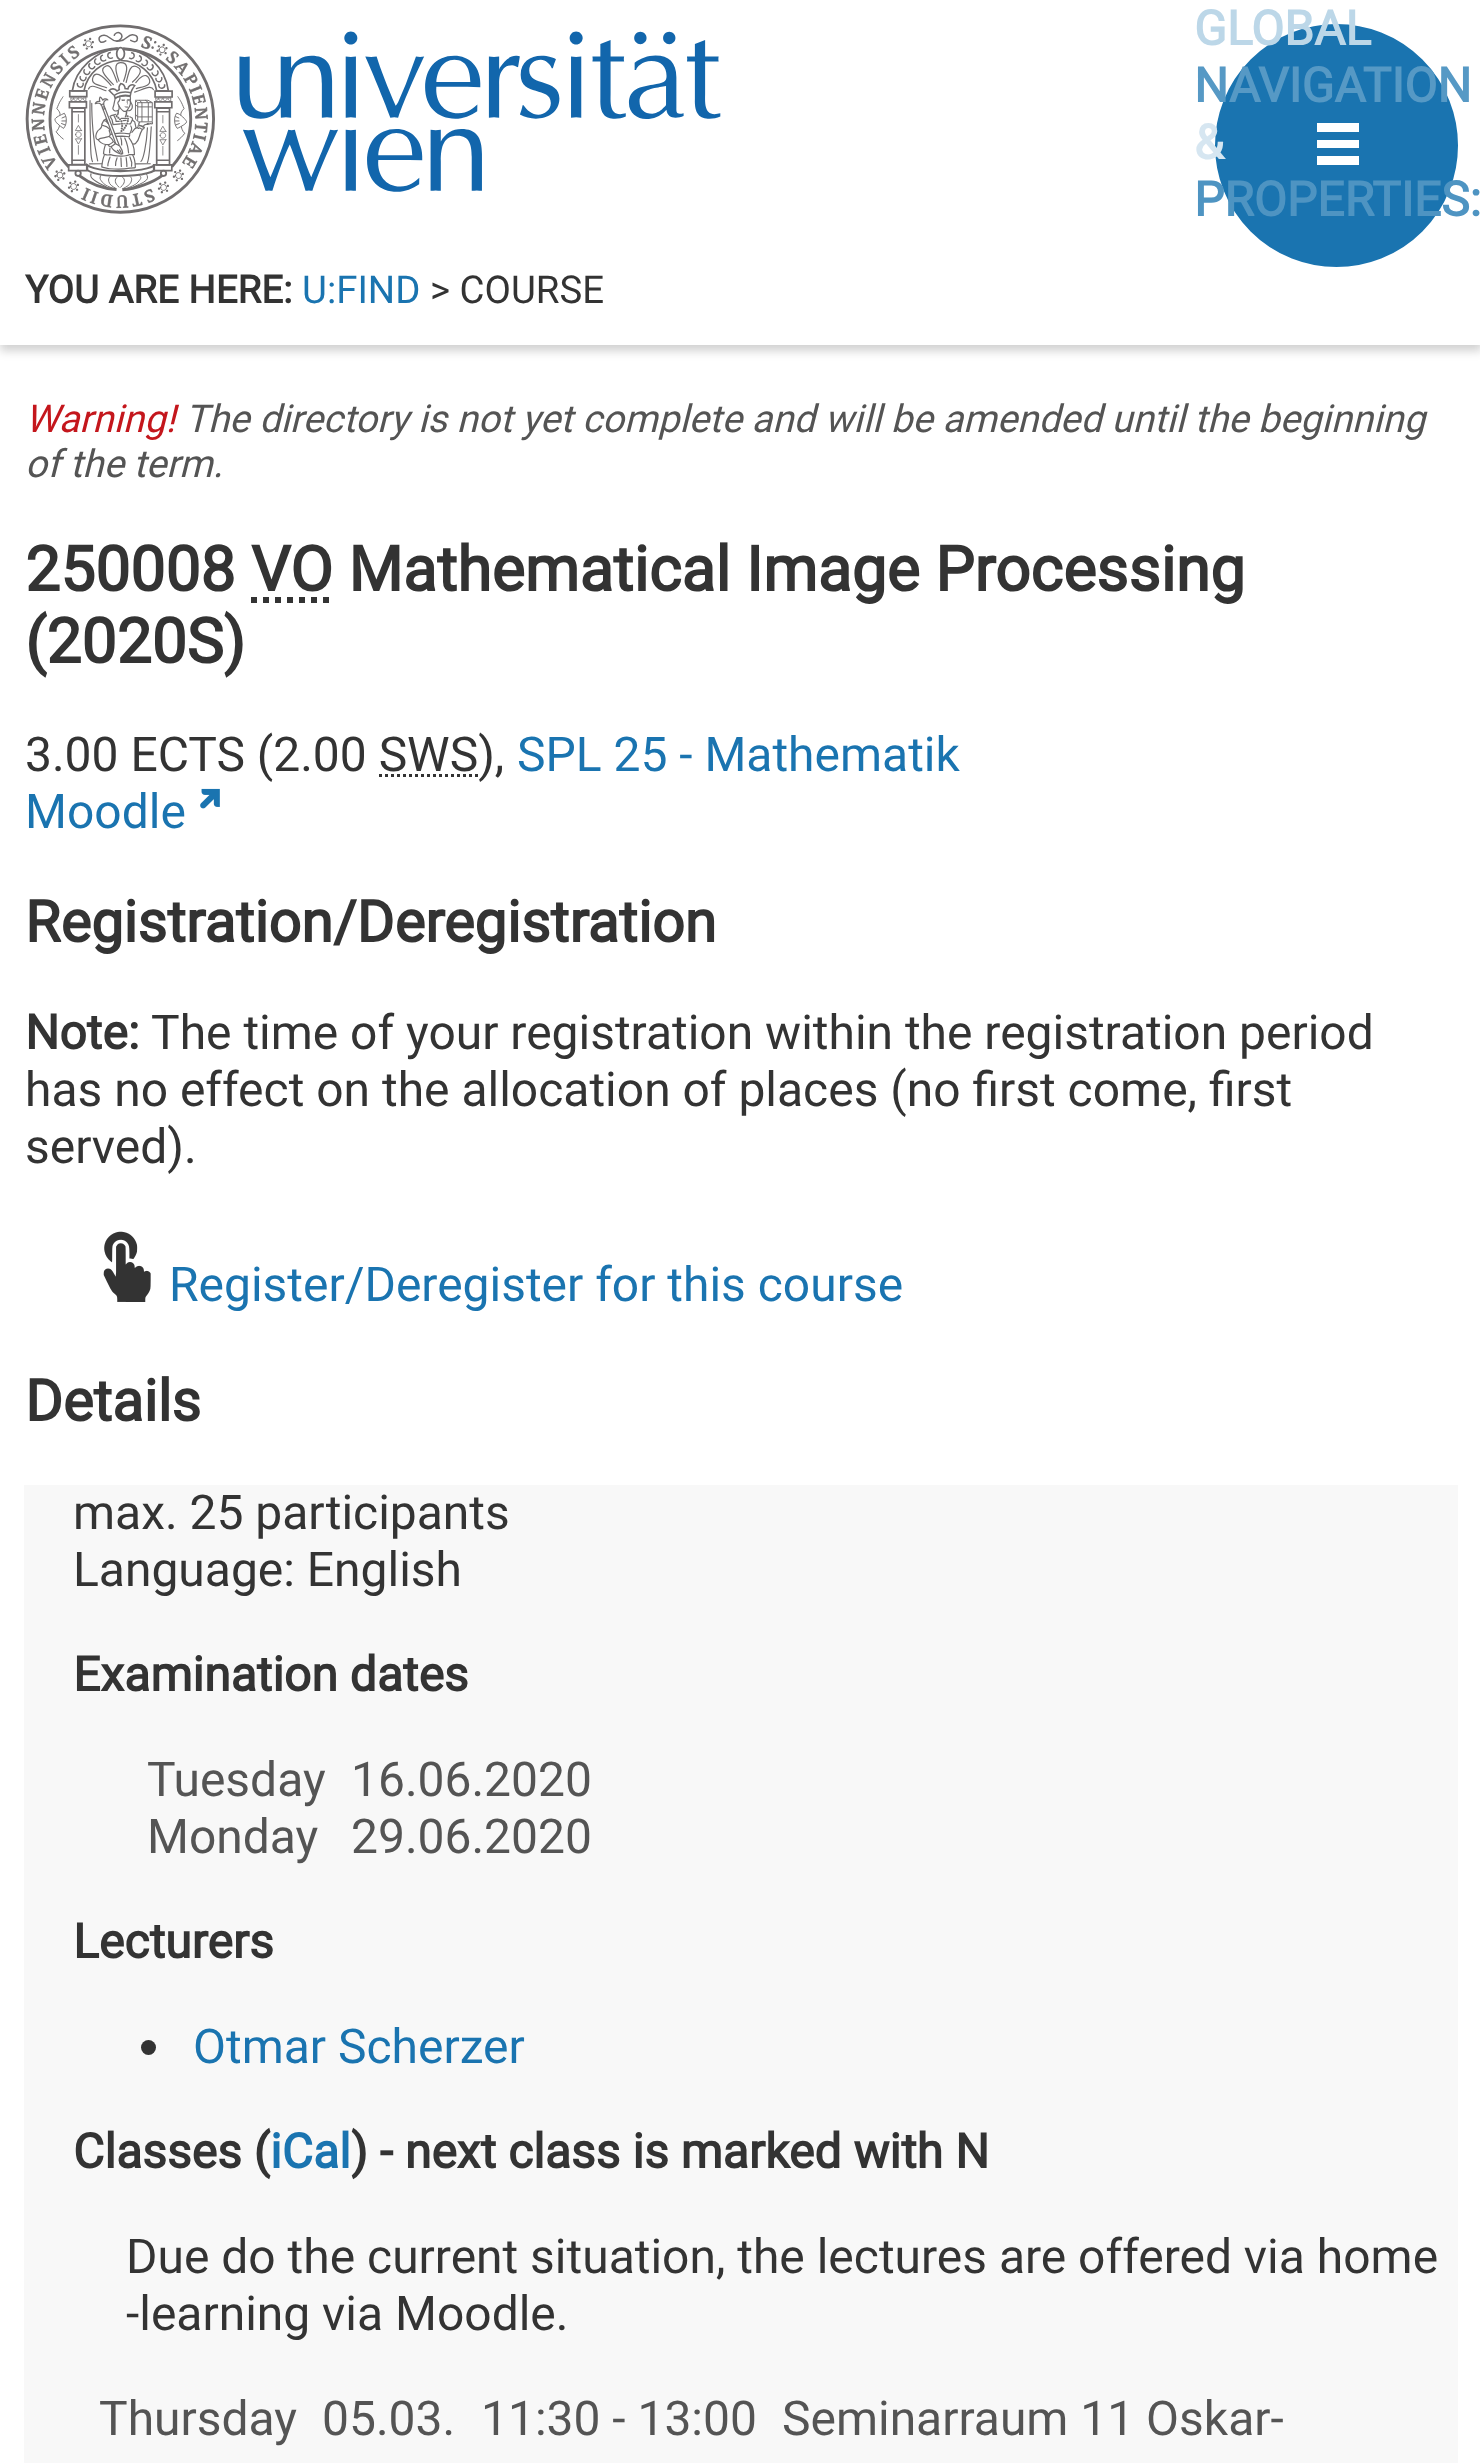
<!DOCTYPE html>
<meta charset="utf-8">
<style>body { margin: 0 } canvas { display: block }</style>
<canvas id="canvas" width="1480" height="2463"></canvas>
<img id="img1" src="images/1.png" hidden>
<img id="img2" src="images/2.png" hidden>
<img id="img3" src="images/3.png" hidden>
<script>
window.onload = function () {
    const canvas = document.getElementById('canvas');
    const context = canvas.getContext('2d');
    context.miterLimit = 4;
    context.fontKerning = 'normal';

    context.fillStyle = 'rgb(255, 255, 255)';
    context.fillRect(0, 0, 1480, 2463);
    context.fillStyle = 'rgba(0, 0, 0, 0.18)';
    context.filter = 'blur(5px)';
    context.beginPath();
    context.rect(0, 6, 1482, 345);
    context.fill();
    context.filter = 'none';
    context.fillStyle = 'rgb(255, 255, 255)';
    context.fillRect(0, 0, 1480, 345);
    context.drawImage(document.getElementById('img1'), 25, 24, 696, 190);
    context.fillStyle = 'rgb(26, 116, 176)';
    context.beginPath();
    context.arc(1336.5, 145.5, 133.5, 0, 2 * Math.PI);
    context.fill();
    context.strokeStyle = 'rgb(255, 255, 255)';
    context.lineWidth = 24;
    context.stroke();
    context.fillStyle = 'rgb(255, 255, 255)';
    context.beginPath();
    context.moveTo(1317, 132);
    context.lineTo(1317, 123);
    context.lineTo(1359, 123);
    context.lineTo(1359, 132);
    context.closePath();
    context.moveTo(1317, 148);
    context.lineTo(1317, 140);
    context.lineTo(1359, 140);
    context.lineTo(1359, 148);
    context.closePath();
    context.moveTo(1317, 165);
    context.lineTo(1317, 156);
    context.lineTo(1359, 156);
    context.lineTo(1359, 165);
    context.closePath();
    context.fill();
    context.beginPath();
    context.moveTo(251, 600);
    context.lineTo(333.5, 600);
    context.strokeStyle = 'rgb(51, 51, 51)';
    context.lineWidth = 6;
    context.setLineDash([6, 6]);
    context.stroke();
    context.beginPath();
    context.moveTo(379, 775.5);
    context.lineTo(478.5, 775.5);
    context.lineWidth = 3;
    context.setLineDash([3, 3]);
    context.stroke();
    context.drawImage(document.getElementById('img2'), 200, 788, 20, 21);
    context.drawImage(document.getElementById('img3'), 103, 1231, 48, 71);
    context.fillStyle = 'rgb(248, 248, 248)';
    context.fillRect(24, 1485, 1434, 978);
    context.fillStyle = 'rgb(51, 51, 51)';
    context.beginPath();
    context.arc(148.5, 2047.5, 7.5, 0, 2 * Math.PI);
    context.fill();
    context.font = 'bold 48px Roboto';
    context.fillStyle = 'rgb(188, 215, 232)';
    context.fillText('GLOBAL', 1194, 45);
    context.fillStyle = 'rgb(86, 153, 197)';
    context.fillText('NAVIGATION', 1194, 102);
    context.fillStyle = 'rgb(214, 230, 241)';
    context.fillText('&', 1194, 159);
    context.fillStyle = 'rgb(78, 148, 194)';
    context.fillText('PROPERTIES:', 1194, 216);
    context.font = 'bold 38.4px Roboto';
    context.fillStyle = 'rgb(51, 51, 51)';
    context.fillText('YOU ARE HERE:', 25, 303);
    context.font = '38.4px Roboto';
    context.fillStyle = 'rgb(26, 116, 176)';
    context.fillText('U:FIND', 302, 303);
    context.fillStyle = 'rgb(51, 51, 51)';
    context.fillText('> COURSE', 430, 303);
    context.font = 'italic 38.4px Roboto';
    context.fillStyle = 'rgb(196, 22, 28)';
    context.fillText('Warning!', 25, 432);
    context.fillStyle = 'rgb(84, 84, 84)';
    context.fillText('The directory is not yet complete and will be amended until the beginning', 185, 432);
    context.fillText('of the term.', 25, 477);
    context.font = 'bold 62.4px Roboto';
    context.fillStyle = 'rgb(51, 51, 51)';
    context.fillText('250008 VO Mathematical Image Processing', 25, 591);
    context.fillText('(2020S)', 25, 663);
    context.font = '48px Roboto';
    context.fillText('3.00 ECTS (2.00 SWS),', 25, 771);
    context.fillStyle = 'rgb(26, 116, 176)';
    context.fillText('SPL 25 - Mathematik', 517, 771);
    context.fillText('Moodle', 25, 828);
    context.font = 'bold 57.6px Roboto';
    context.fillStyle = 'rgb(51, 51, 51)';
    context.fillText('Registration/Deregistration', 25, 942);
    context.font = 'bold 48px Roboto';
    context.fillText('Note:', 25, 1049);
    context.font = '48px Roboto';
    context.fillText('The time of your registration within the registration period', 151, 1049);
    context.fillText('has no effect on the allocation of places (no first come, first', 25, 1106);
    context.fillText('served).', 25, 1163);
    context.fillStyle = 'rgb(26, 116, 176)';
    context.fillText('Register/Deregister for this course', 169, 1301);
    context.font = 'bold 57.6px Roboto';
    context.fillStyle = 'rgb(51, 51, 51)';
    context.fillText('Details', 25, 1421);
    context.font = '48px Roboto';
    context.fillText('max. 25 participants', 73, 1529);
    context.fillText('Language: English', 73, 1586);
    context.font = 'bold 48px Roboto';
    context.fillText('Examination dates', 73, 1691);
    context.font = '48px Roboto';
    context.fillStyle = 'rgb(84, 84, 84)';
    context.fillText('Tuesday', 147, 1796);
    context.fillText('16.06.2020', 351, 1796);
    context.fillText('Monday', 147, 1853);
    context.fillText('29.06.2020', 351, 1853);
    context.font = 'bold 48px Roboto';
    context.fillStyle = 'rgb(51, 51, 51)';
    context.fillText('Lecturers', 73, 1958);
    context.font = '48px Roboto';
    context.fillStyle = 'rgb(26, 116, 176)';
    context.fillText('Otmar Scherzer', 193, 2063);
    context.font = 'bold 48px Roboto';
    context.fillStyle = 'rgb(51, 51, 51)';
    context.fillText('Classes (', 73, 2168);
    context.fillStyle = 'rgb(26, 116, 176)';
    context.fillText('iCal', 270, 2168);
    context.fillStyle = 'rgb(51, 51, 51)';
    context.fillText(') - next class is marked with N', 351, 2168);
    context.font = '48px Roboto';
    context.fillText('Due do the current situation, the lectures are offered via home', 126, 2273);
    context.fillText('-learning via Moodle.', 126, 2330);
    context.fillStyle = 'rgb(84, 84, 84)';
    context.fillText('Thursday', 99, 2435);
    context.fillText('05.03.', 322, 2435);
    context.fillText('11:30 - 13:00', 481, 2435);
    context.fillText('Seminarraum 11 Oskar-', 782, 2435);
};
</script>
